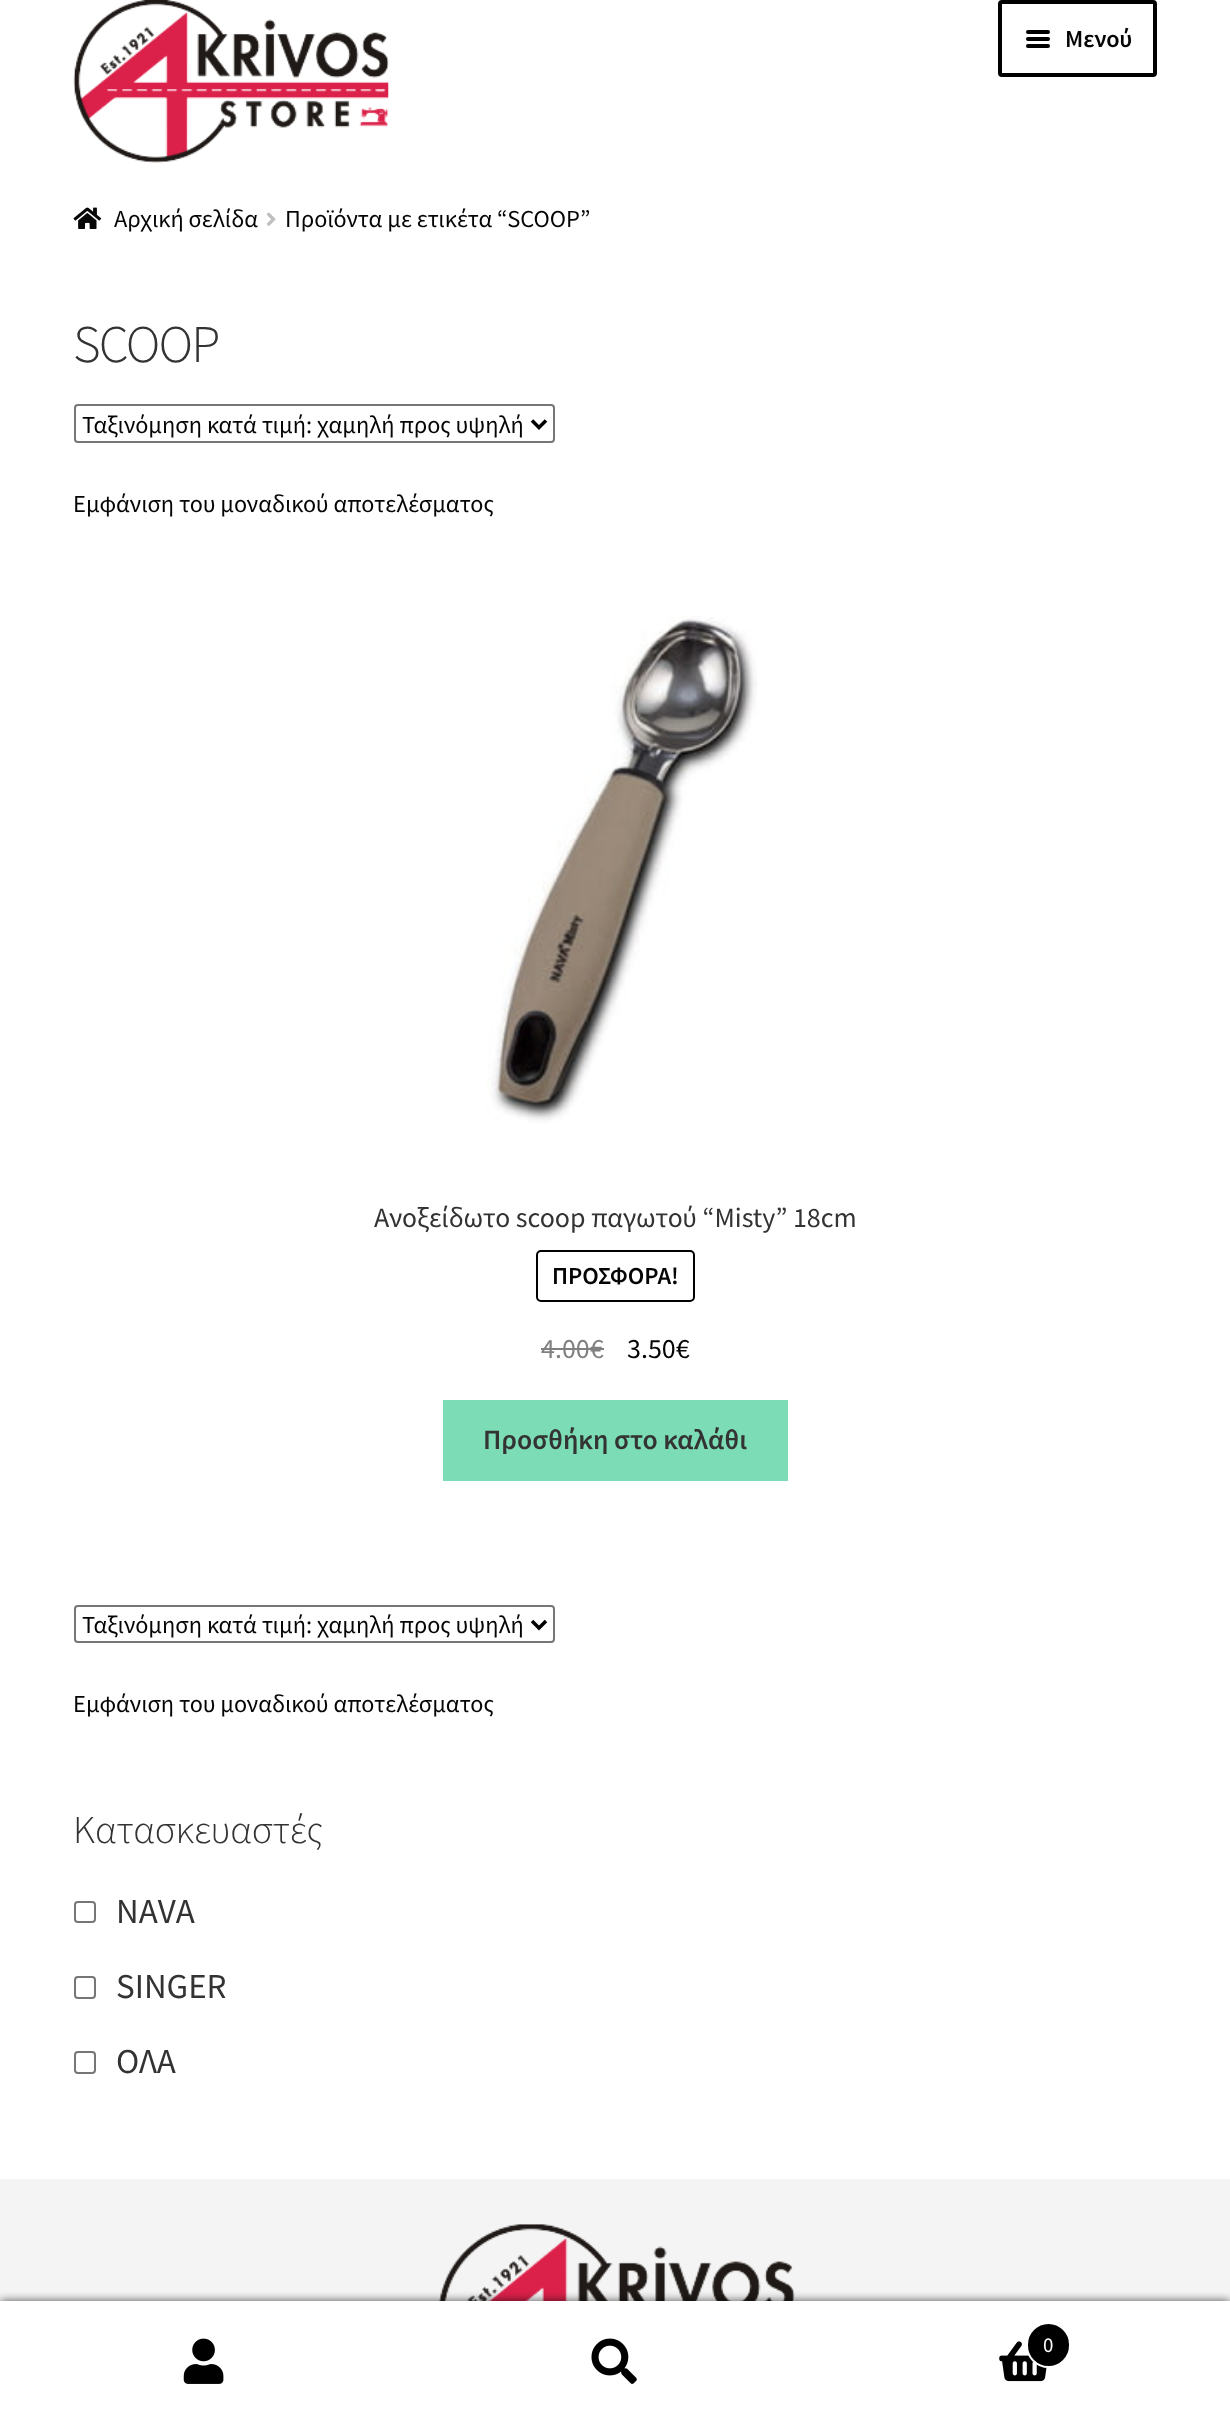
<!DOCTYPE html>
<meta charset="utf-8">
<style>body { margin: 0 } canvas { display: block }</style>
<canvas id="canvas" width="1230" height="2422"></canvas>
<img id="img1" src="images/1.png" hidden>
<img id="img2" src="images/2.png" hidden>
<img id="img3" src="images/3.png" hidden>
<img id="img4" src="images/4.png" hidden>
<img id="img5" src="images/5.png" hidden>
<img id="img6" src="images/6.png" hidden>
<img id="img7" src="images/7.png" hidden>
<img id="img8" src="images/8.png" hidden>
<script>
window.onload = function () {
    const canvas = document.getElementById('canvas');
    const context = canvas.getContext('2d');
    context.miterLimit = 4;
    context.fontKerning = 'normal';

    context.fillStyle = 'rgb(255, 255, 255)';
    context.fillRect(0, 0, 1230, 2422);
    context.drawImage(document.getElementById('img1'), 73, 0, 316, 163);
    context.beginPath();
    context.roundRect(1000, 2, 155, 73, 2);
    context.strokeStyle = 'rgb(0, 0, 0)';
    context.lineWidth = 4;
    context.stroke();
    context.fillStyle = 'rgb(0, 0, 0)';
    context.beginPath();
    context.roundRect(1026, 30, 24, 4, 2);
    context.fill();
    context.beginPath();
    context.roundRect(1026, 37, 24, 4, 2);
    context.fill();
    context.beginPath();
    context.roundRect(1026, 44, 24, 4, 2);
    context.fill();
    context.drawImage(document.getElementById('img2'), 73, 207, 29, 22);
    context.drawImage(document.getElementById('img3'), 266, 212, 10, 14);
    context.beginPath();
    context.roundRect(75, 405, 479, 37, 3);
    context.strokeStyle = 'rgb(118, 118, 118)';
    context.lineWidth = 2;
    context.stroke();
    context.beginPath();
    context.moveTo(532, 420.5);
    context.lineTo(539, 427.5);
    context.lineTo(546, 420.5);
    context.strokeStyle = 'rgb(0, 0, 0)';
    context.lineWidth = 3.5;
    context.stroke();
    context.drawImage(document.getElementById('img4'), 486, 616, 272, 507);
    context.beginPath();
    context.roundRect(537, 1251, 157, 50, 4);
    context.lineWidth = 2;
    context.stroke();
    context.fillStyle = 'rgb(128, 128, 128)';
    context.fillRect(541, 1348, 63, 2);
    context.fillStyle = 'rgb(123, 220, 181)';
    context.fillRect(443, 1400, 345, 81);
    context.beginPath();
    context.roundRect(75, 1606, 479, 36, 3);
    context.strokeStyle = 'rgb(118, 118, 118)';
    context.stroke();
    context.beginPath();
    context.moveTo(532, 1621);
    context.lineTo(539, 1628);
    context.lineTo(546, 1621);
    context.strokeStyle = 'rgb(0, 0, 0)';
    context.lineWidth = 3.5;
    context.stroke();
    context.beginPath();
    context.roundRect(75, 1902, 20, 20, 3);
    context.strokeStyle = 'rgb(118, 118, 118)';
    context.lineWidth = 2;
    context.stroke();
    context.beginPath();
    context.roundRect(75, 1977, 20, 21, 3);
    context.stroke();
    context.beginPath();
    context.roundRect(75, 2052, 20, 21, 3);
    context.stroke();
    context.fillStyle = 'rgb(244, 244, 244)';
    context.fillRect(0, 2179, 1230, 122);
    context.drawImage(document.getElementById('img5'), 438, 2224, 357, 77);
    context.fillStyle = 'rgba(0, 0, 0, 0.7)';
    context.filter = 'blur(5px)';
    context.beginPath();
    context.rect(0, 2301, 1230, 121);
    context.fill();
    context.filter = 'none';
    context.fillStyle = 'rgb(255, 255, 255)';
    context.fillRect(0, 2301, 1230, 2);
    context.fillRect(0, 2303, 1230, 119);
    context.drawImage(document.getElementById('img6'), 183, 2338, 41, 46);
    context.drawImage(document.getElementById('img7'), 591, 2338, 46, 46);
    context.drawImage(document.getElementById('img8'), 999, 2341, 48, 41);
    context.fillStyle = 'rgb(0, 0, 0)';
    context.beginPath();
    context.roundRect(1027, 2323, 43, 44, 21.5);
    context.fill();
    context.strokeStyle = 'rgb(255, 255, 255)';
    context.stroke();
    context.font = '600 24.5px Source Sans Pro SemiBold';
    context.fillStyle = 'rgb(5, 5, 5)';
    context.fillText('Μενού', 1065, 47);
    context.font = '24.5px Source Sans Pro';
    context.fillText('Αρχική σελίδα', 114, 227);
    context.fillText('Προϊόντα με ετικέτα “SCOOP”', 285, 227);
    context.letterSpacing = '-1.75px';
    context.font = '300 53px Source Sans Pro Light';
    context.fillStyle = 'rgb(51, 51, 51)';
    context.fillText('SCOOP', 73, 362);
    context.letterSpacing = '0px';
    context.font = '24.5px Source Sans Pro';
    context.fillStyle = 'rgb(5, 5, 5)';
    context.fillText('Ταξινόμηση κατά τιμή: χαμηλή προς υψηλή', 82, 433);
    context.fillText('Εμφάνιση του μοναδικού αποτελέσματος', 73, 512);
    context.font = '28px Source Sans Pro';
    context.fillStyle = 'rgb(51, 51, 51)';
    context.fillText('Ανοξείδωτο scoop παγωτού “Misty” 18cm', 374, 1227);
    context.font = '600 24.5px Source Sans Pro SemiBold';
    context.fillStyle = 'rgb(5, 5, 5)';
    context.fillText('ΠΡΟΣΦΟΡΑ!', 552, 1284);
    context.font = '28px Source Sans Pro';
    context.fillStyle = 'rgb(128, 128, 128)';
    context.fillText('4.00€', 541, 1358);
    context.fillStyle = 'rgb(5, 5, 5)';
    context.fillText('3.50€', 627, 1358);
    context.font = '600 28px Source Sans Pro SemiBold';
    context.fillStyle = 'rgb(51, 51, 51)';
    context.fillText('Προσθήκη στο καλάθι', 483, 1449);
    context.font = '24.5px Source Sans Pro';
    context.fillStyle = 'rgb(5, 5, 5)';
    context.fillText('Ταξινόμηση κατά τιμή: χαμηλή προς υψηλή', 82, 1633);
    context.fillText('Εμφάνιση του μοναδικού αποτελέσματος', 73, 1712);
    context.font = '300 39.5px Source Sans Pro Light';
    context.fillStyle = 'rgb(51, 51, 51)';
    context.fillText('Κατασκευαστές', 73, 1843);
    context.font = '35px Source Sans Pro';
    context.fillText('NAVA', 116, 1923);
    context.fillText('SINGER', 116, 1998);
    context.fillText('ΟΛΑ', 116, 2073);
    context.font = '21px Source Sans Pro';
    context.fillStyle = 'rgb(255, 255, 255)';
    context.fillText('0', 1043, 2352);
};
</script>
